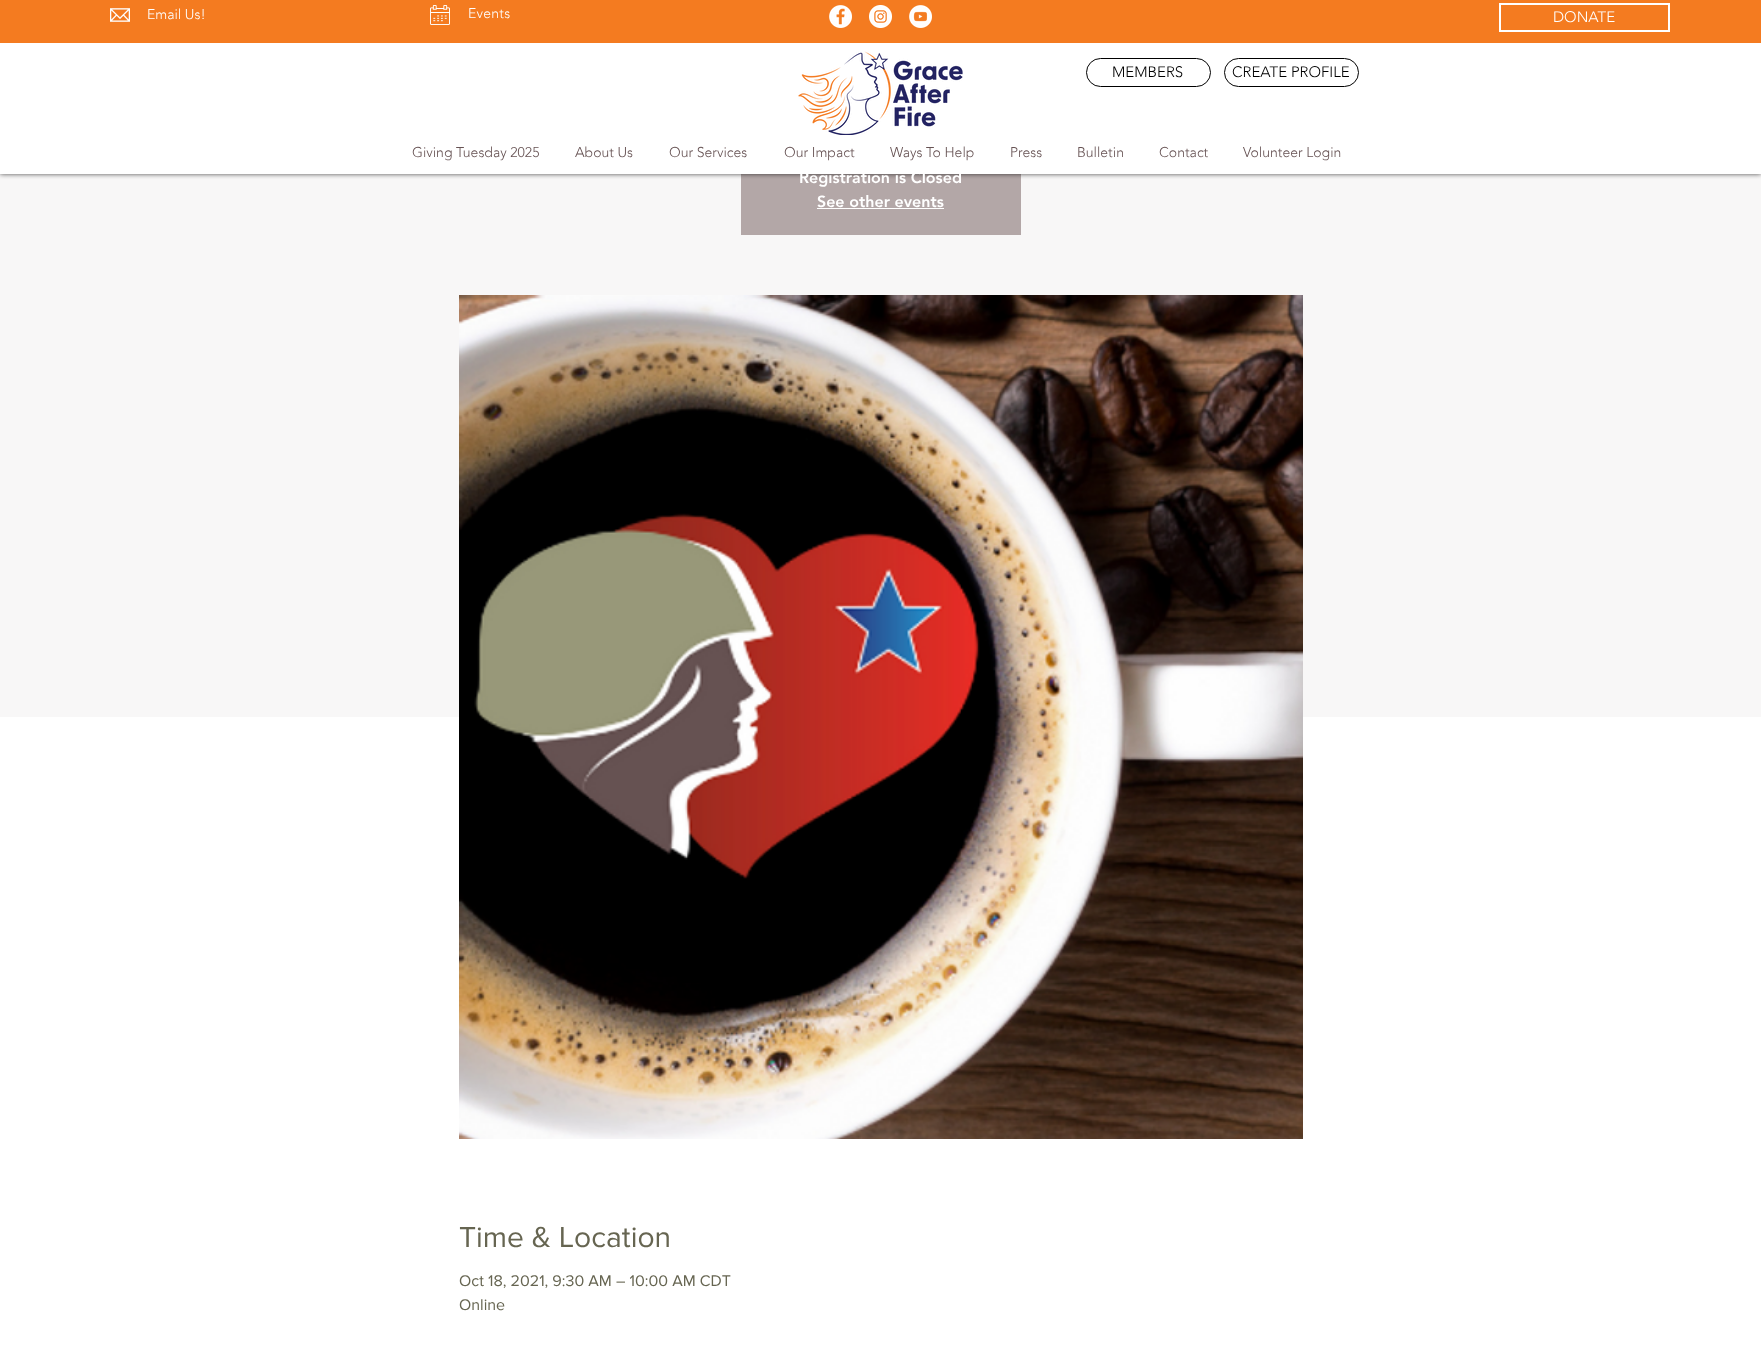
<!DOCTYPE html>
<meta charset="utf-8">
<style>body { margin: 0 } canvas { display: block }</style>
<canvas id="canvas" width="1761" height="1368"></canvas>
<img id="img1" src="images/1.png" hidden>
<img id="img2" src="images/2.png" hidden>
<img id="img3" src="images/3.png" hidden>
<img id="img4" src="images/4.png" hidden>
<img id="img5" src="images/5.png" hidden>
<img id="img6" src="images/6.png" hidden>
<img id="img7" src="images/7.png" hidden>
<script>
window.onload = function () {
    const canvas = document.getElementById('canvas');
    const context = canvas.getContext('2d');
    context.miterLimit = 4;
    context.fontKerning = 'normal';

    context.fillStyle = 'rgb(255, 255, 255)';
    context.fillRect(0, 0, 1761, 1368);
    context.fillStyle = 'rgb(248, 247, 247)';
    context.fillRect(0, 174, 1761, 543);
    context.fillStyle = 'rgb(179, 167, 167)';
    context.fillRect(741, 174, 280, 61);
    context.fillStyle = 'rgba(0, 0, 0, 0.7)';
    context.filter = 'blur(2.5px)';
    context.beginPath();
    context.rect(0, 0, 1761, 174);
    context.fill();
    context.filter = 'none';
    context.fillStyle = 'rgb(255, 255, 255)';
    context.fillRect(0, 43, 1761, 131);
    context.fillStyle = 'rgb(244, 123, 32)';
    context.fillRect(0, 0, 1761, 43);
    context.drawImage(document.getElementById('img1'), 110, 8, 20, 14);
    context.drawImage(document.getElementById('img2'), 430, 5, 20, 20);
    context.drawImage(document.getElementById('img3'), 829, 5, 23, 23);
    context.drawImage(document.getElementById('img4'), 869, 5, 23, 23);
    context.drawImage(document.getElementById('img5'), 909, 5, 23, 23);
    context.strokeStyle = 'rgb(255, 255, 255)';
    context.lineWidth = 2;
    context.strokeRect(1500, 4, 169, 27);
    context.drawImage(document.getElementById('img6'), 798, 51, 165, 84);
    context.beginPath();
    context.roundRect(1086.5, 58.5, 124, 28, 14);
    context.strokeStyle = 'rgb(0, 0, 0)';
    context.lineWidth = 1;
    context.stroke();
    context.beginPath();
    context.roundRect(1224.5, 58.5, 134, 28, 14);
    context.stroke();
    context.fillStyle = 'rgb(255, 255, 255)';
    context.fillRect(817, 208, 127, 1);
    context.drawImage(document.getElementById('img7'), 459, 295, 844, 844);
    context.font = '300 14px "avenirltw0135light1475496"';
    context.fillText('Email Us!', 147, 19);
    context.letterSpacing = '0.25px';
    context.fillText('Events', 468, 18);
    context.letterSpacing = '0px';
    context.font = '300 15px "avenirltw0135light1475496"';
    context.fillText('DONATE', 1553, 22);
    context.fillStyle = 'rgb(0, 0, 0)';
    context.fillText('MEMBERS', 1112, 77);
    context.fillText('CREATE PROFILE', 1232, 77);
    context.font = '300 14px "avenirltw0135light1475496"';
    context.fillStyle = 'rgb(102, 82, 83)';
    context.fillText('Giving Tuesday 2025', 412, 157);
    context.fillText('About Us', 575, 157);
    context.fillText('Our Services', 669, 157);
    context.fillText('Our Impact', 784, 157);
    context.fillText('Ways To Help', 890, 157);
    context.fillText('Press', 1010, 157);
    context.fillText('Bulletin', 1077, 157);
    context.fillText('Contact', 1159, 157);
    context.fillText('Volunteer Login', 1243, 157);
    context.font = '900 16px "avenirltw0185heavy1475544"';
    context.fillStyle = 'rgb(255, 255, 255)';
    context.fillText('Registration is Closed', 799, 183);
    context.fillText('See other events', 817, 207);
    context.font = '30px "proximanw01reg"';
    context.fillStyle = 'rgb(102, 101, 81)';
    context.fillText('Time & Location', 459, 1247);
    context.font = '16px "proximanw01reg"';
    context.fillText('Oct 18, 2021, 9:30 AM – 10:00 AM CDT', 459, 1286);
    context.fillText('Online', 459, 1310);
};
</script>
